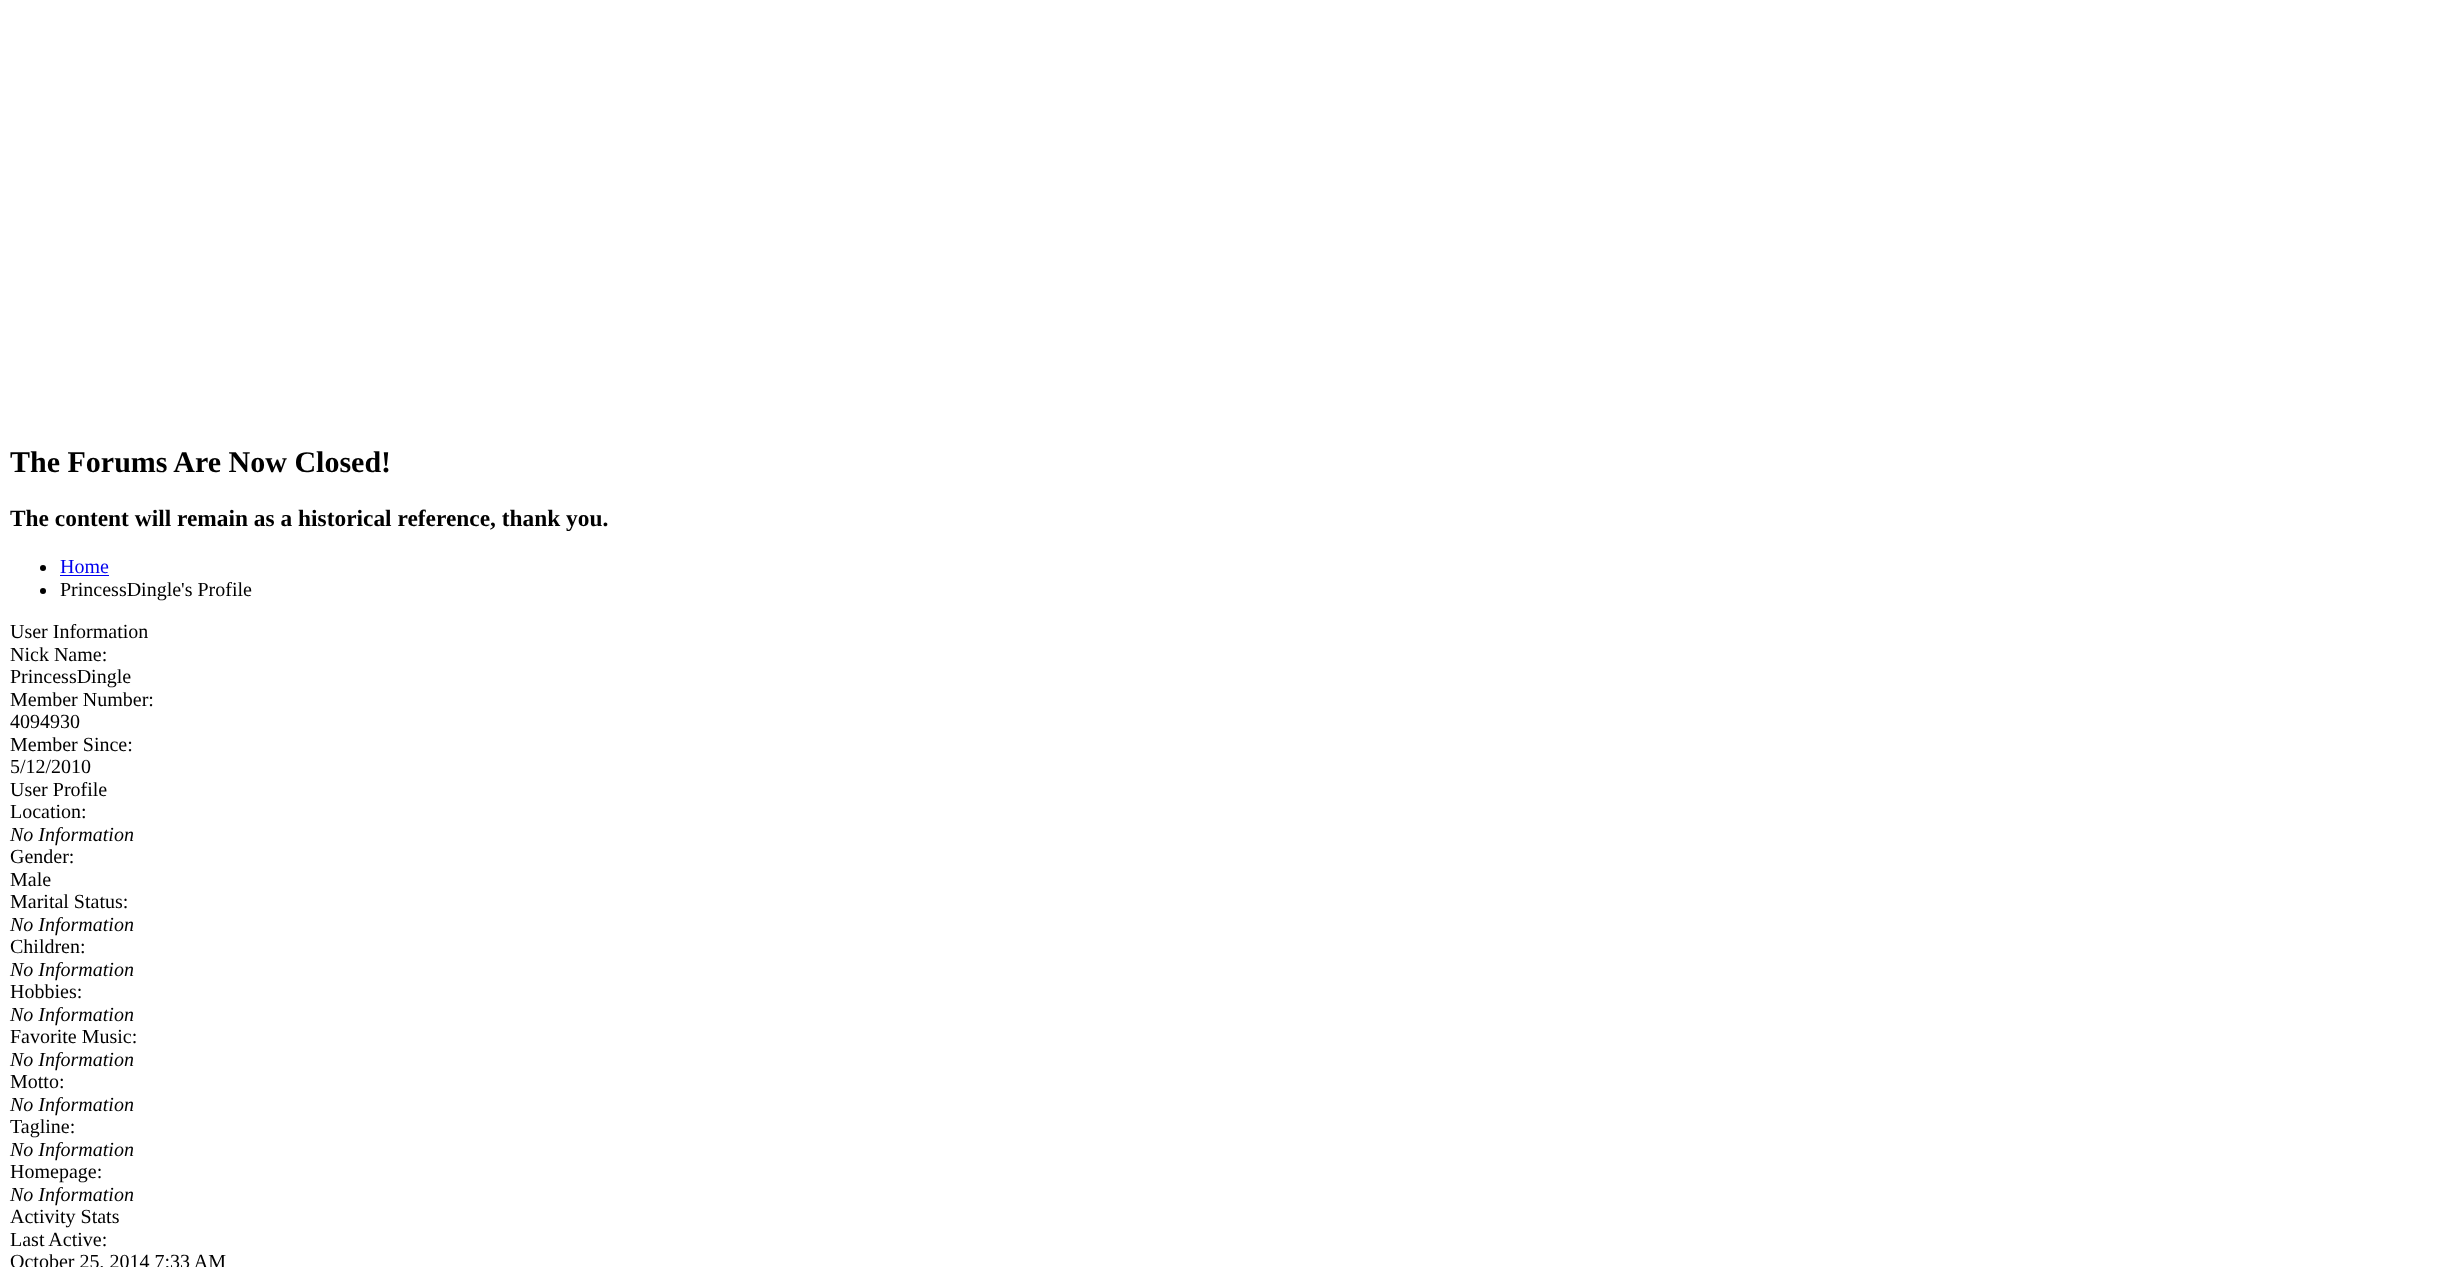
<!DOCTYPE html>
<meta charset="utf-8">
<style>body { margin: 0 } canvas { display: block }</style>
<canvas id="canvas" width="2456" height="1267"></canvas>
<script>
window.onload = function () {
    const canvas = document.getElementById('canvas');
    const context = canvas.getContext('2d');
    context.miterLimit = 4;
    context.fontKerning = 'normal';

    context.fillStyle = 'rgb(255, 255, 255)';
    context.fillRect(0, 0, 2456, 1267);
    context.fillStyle = 'rgb(0, 0, 0)';
    context.beginPath();
    context.arc(43, 568, 3, 0, 2 * Math.PI);
    context.fill();
    context.fillStyle = 'rgb(0, 0, 238)';
    context.fillRect(60, 575, 49, 1);
    context.fillStyle = 'rgb(0, 0, 0)';
    context.beginPath();
    context.arc(43, 591, 3, 0, 2 * Math.PI);
    context.fill();
    context.font = 'bold 30px Liberation Serif';
    context.fillText('The Forums Are Now Closed!', 10, 472);
    context.font = 'bold 23.4px Liberation Serif';
    context.fillText('The content will remain as a historical reference, thank you.', 10, 526);
    context.font = '20px Liberation Serif';
    context.fillStyle = 'rgb(0, 0, 238)';
    context.fillText('Home', 60, 573);
    context.fillStyle = 'rgb(0, 0, 0)';
    context.fillText('PrincessDingle\'s Profile', 60, 596);
    context.fillText('User Information', 10, 638);
    context.fillText('Nick Name:', 10, 661);
    context.fillText('PrincessDingle', 10, 683);
    context.fillText('Member Number:', 10, 706);
    context.fillText('4094930', 10, 728);
    context.fillText('Member Since:', 10, 751);
    context.fillText('5/12/2010', 10, 773);
    context.fillText('User Profile', 10, 796);
    context.fillText('Location:', 10, 818);
    context.font = 'italic 20px Liberation Serif';
    context.fillText('No Information', 10, 841);
    context.font = '20px Liberation Serif';
    context.fillText('Gender:', 10, 863);
    context.fillText('Male', 10, 886);
    context.fillText('Marital Status:', 10, 908);
    context.font = 'italic 20px Liberation Serif';
    context.fillText('No Information', 10, 931);
    context.font = '20px Liberation Serif';
    context.fillText('Children:', 10, 953);
    context.font = 'italic 20px Liberation Serif';
    context.fillText('No Information', 10, 976);
    context.font = '20px Liberation Serif';
    context.fillText('Hobbies:', 10, 998);
    context.font = 'italic 20px Liberation Serif';
    context.fillText('No Information', 10, 1021);
    context.font = '20px Liberation Serif';
    context.fillText('Favorite Music:', 10, 1043);
    context.font = 'italic 20px Liberation Serif';
    context.fillText('No Information', 10, 1066);
    context.font = '20px Liberation Serif';
    context.fillText('Motto:', 10, 1088);
    context.font = 'italic 20px Liberation Serif';
    context.fillText('No Information', 10, 1111);
    context.font = '20px Liberation Serif';
    context.fillText('Tagline:', 10, 1133);
    context.font = 'italic 20px Liberation Serif';
    context.fillText('No Information', 10, 1156);
    context.font = '20px Liberation Serif';
    context.fillText('Homepage:', 10, 1178);
    context.font = 'italic 20px Liberation Serif';
    context.fillText('No Information', 10, 1201);
    context.font = '20px Liberation Serif';
    context.fillText('Activity Stats', 10, 1223);
    context.fillText('Last Active:', 10, 1246);
    context.fillText('October 25, 2014 7:33 AM', 10, 1268);
};
</script>
